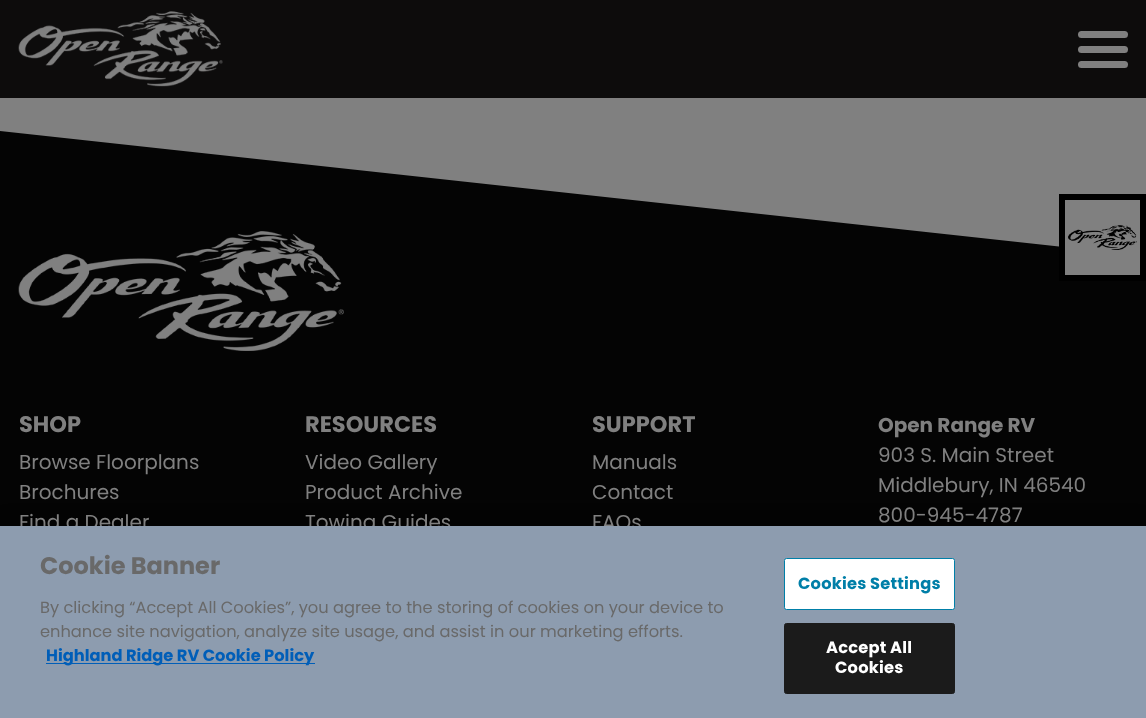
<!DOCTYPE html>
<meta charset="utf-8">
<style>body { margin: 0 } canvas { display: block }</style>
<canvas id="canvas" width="1146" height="718"></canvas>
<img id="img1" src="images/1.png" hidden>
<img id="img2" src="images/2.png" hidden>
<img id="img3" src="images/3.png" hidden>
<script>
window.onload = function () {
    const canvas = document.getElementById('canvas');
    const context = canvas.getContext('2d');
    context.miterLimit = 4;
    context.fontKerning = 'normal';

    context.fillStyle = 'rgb(128, 128, 128)';
    context.fillRect(0, 0, 1146, 718);
    context.fillStyle = 'rgb(13, 12, 12)';
    context.fillRect(0, 0, 1146, 98);
    context.drawImage(document.getElementById('img1'), 18, 11, 205, 76);
    context.fillStyle = 'rgb(128, 128, 128)';
    context.beginPath();
    context.roundRect(1078, 31, 50, 7, 3.5);
    context.fill();
    context.beginPath();
    context.roundRect(1078, 46, 50, 7, 3.5);
    context.fill();
    context.beginPath();
    context.roundRect(1078, 61, 50, 7, 3.5);
    context.fill();
    context.fillStyle = 'rgb(4, 4, 4)';
    context.beginPath();
    context.moveTo(0, 131);
    context.lineTo(0, 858);
    context.lineTo(1146, 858);
    context.lineTo(1146, 256);
    context.closePath();
    context.fill();
    context.fillStyle = 'rgb(0, 0, 0)';
    context.fillRect(1059, 194, 87, 87);
    context.drawImage(document.getElementById('img2'), 1065, 200, 75, 75);
    context.drawImage(document.getElementById('img3'), 18, 231, 326, 120);
    context.fillStyle = 'rgba(0, 0, 0, 0.2)';
    context.filter = 'blur(11px)';
    context.beginPath();
    context.rect(0, 526, 1146, 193);
    context.fill();
    context.filter = 'none';
    context.font = 'bold 22.5px Poppins';
    context.fillStyle = 'rgb(128, 128, 128)';
    context.fillText('SHOP', 19, 432);
    context.font = '20px Poppins';
    context.fillText('Browse Floorplans', 19, 469);
    context.fillText('Brochures', 19, 499);
    context.fillText('Find a Dealer', 19, 529);
    context.font = 'bold 22.5px Poppins';
    context.fillText('RESOURCES', 305, 432);
    context.font = '20px Poppins';
    context.fillText('Video Gallery', 305, 469);
    context.fillText('Product Archive', 305, 499);
    context.fillText('Towing Guides', 305, 529);
    context.font = 'bold 22.5px Poppins';
    context.fillText('SUPPORT', 592, 432);
    context.font = '20px Poppins';
    context.fillText('Manuals', 592, 469);
    context.fillText('Contact', 592, 499);
    context.fillText('FAQs', 592, 529);
    context.font = 'bold 20px Poppins';
    context.fillText('Open Range RV', 878, 432);
    context.font = '20px Poppins';
    context.fillText('903 S. Main Street', 878, 462);
    context.fillText('Middlebury, IN 46540', 878, 492);
    context.fillText('800-945-4787', 878, 522);
    context.fillStyle = 'rgb(141, 156, 175)';
    context.fillRect(0, 526, 1146, 192);
    context.font = 'bold 24px Poppins';
    context.fillStyle = 'rgb(105, 105, 105)';
    context.fillText('Cookie Banner', 40, 574);
    context.font = '16.25px Poppins';
    context.fillText('By clicking “Accept All Cookies”, you agree to the storing of cookies on your device to', 40, 613);
    context.fillText('enhance site navigation, analyze site usage, and assist in our marketing efforts.', 40, 637);
    context.fillStyle = 'rgb(0, 94, 184)';
    context.fillRect(46, 663, 269, 1);
    context.font = 'bold 16.25px Poppins';
    context.fillText('Highland Ridge RV Cookie Policy', 46, 661);
    context.fillStyle = 'rgb(255, 255, 255)';
    context.beginPath();
    context.roundRect(784.5, 558.5, 170, 51, 2);
    context.fill();
    context.strokeStyle = 'rgb(0, 127, 168)';
    context.stroke();
    context.letterSpacing = '0.2px';
    context.fillStyle = 'rgb(0, 127, 168)';
    context.fillText('Cookies Settings', 798, 589);
    context.fillStyle = 'rgb(27, 27, 27)';
    context.beginPath();
    context.roundRect(784.5, 623.5, 170, 70, 2);
    context.fill();
    context.strokeStyle = 'rgb(27, 27, 27)';
    context.stroke();
    context.fillStyle = 'rgb(255, 255, 255)';
    context.fillText('Accept All', 826, 653);
    context.fillText('Cookies', 835, 673);
};
</script>
